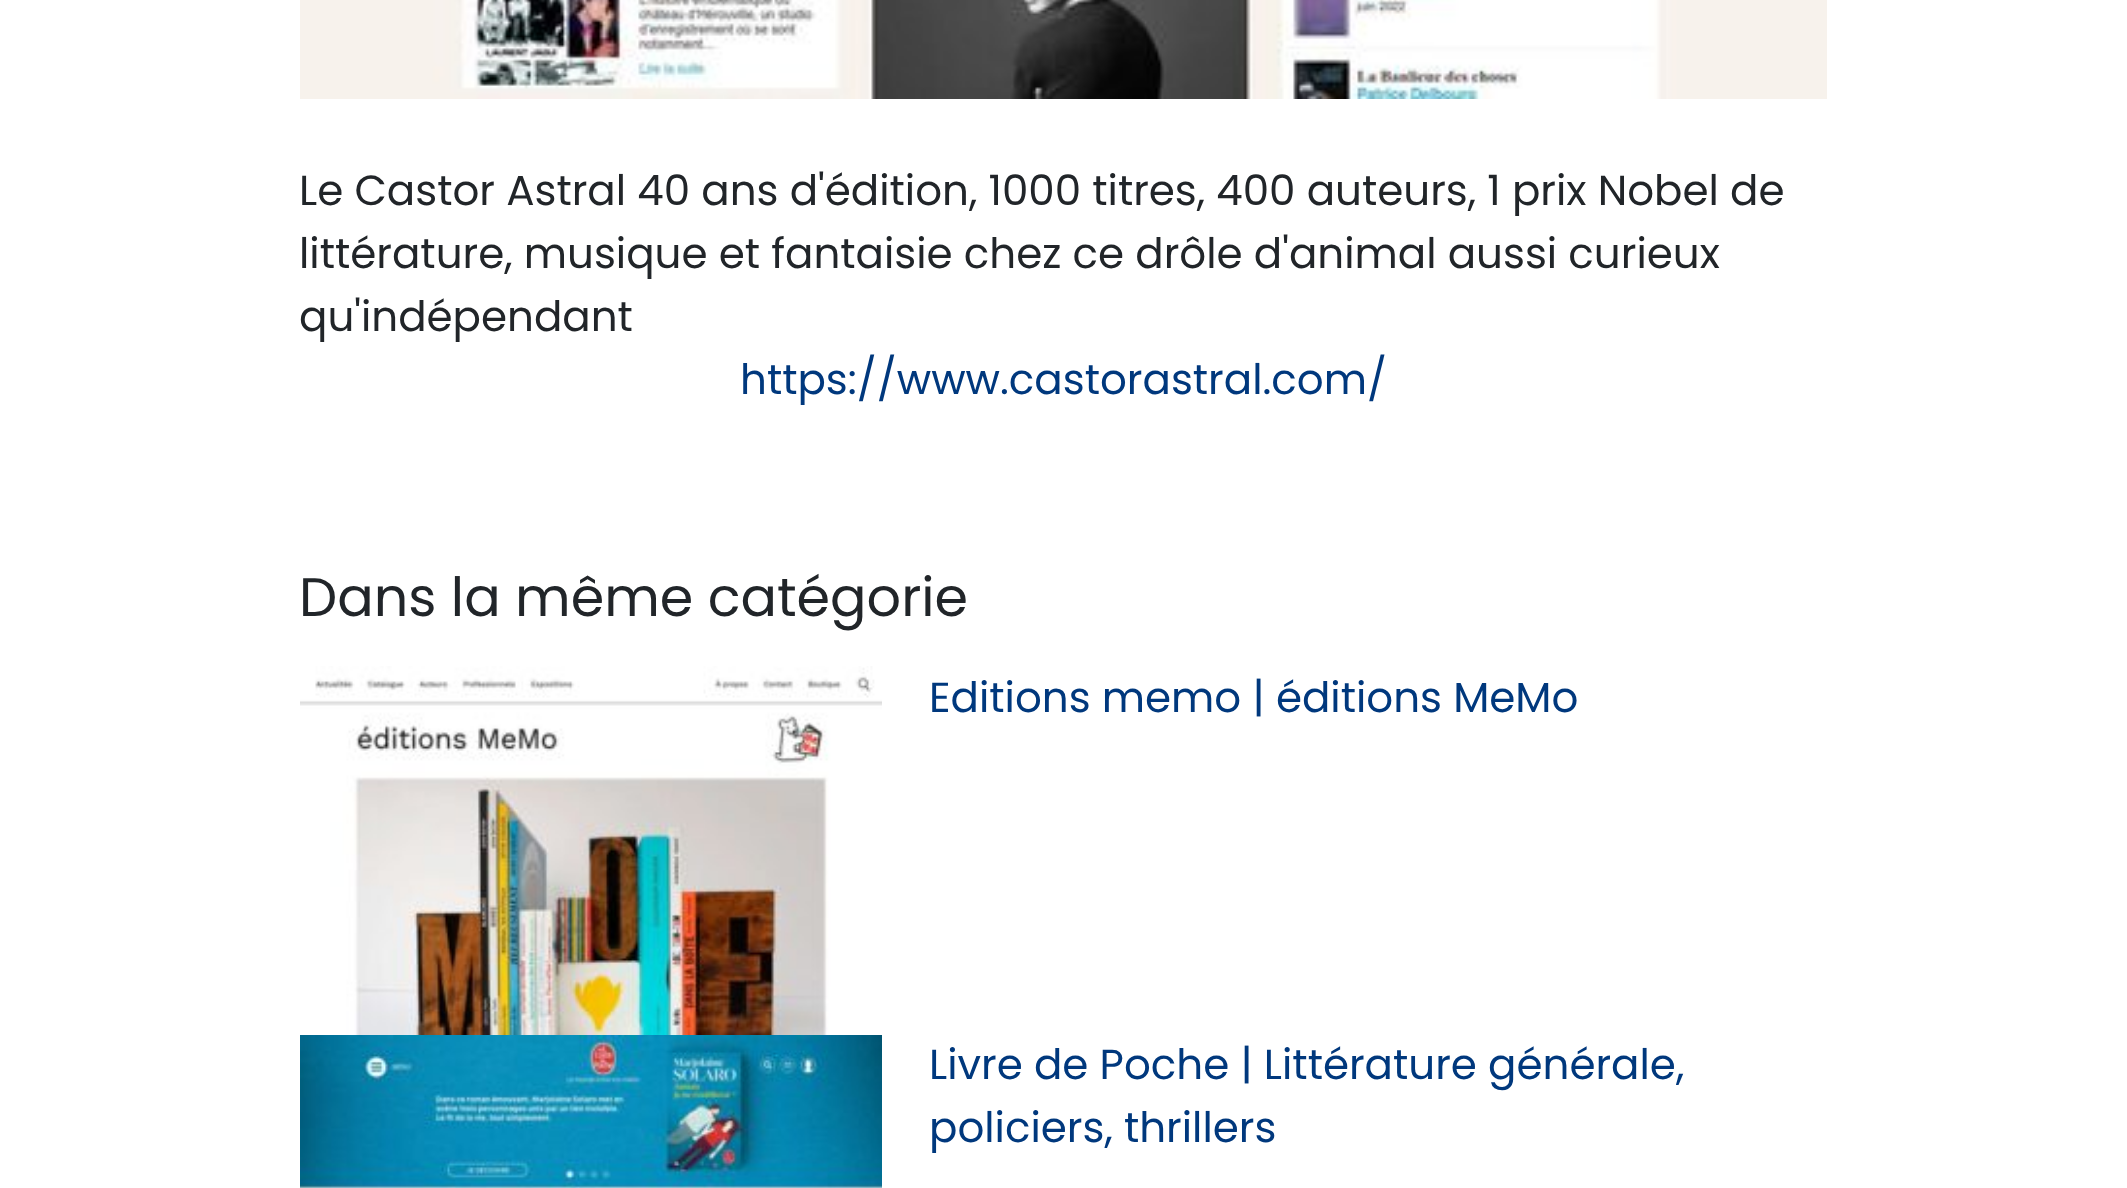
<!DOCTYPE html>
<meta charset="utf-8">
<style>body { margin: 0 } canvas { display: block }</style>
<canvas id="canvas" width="2127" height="1188"></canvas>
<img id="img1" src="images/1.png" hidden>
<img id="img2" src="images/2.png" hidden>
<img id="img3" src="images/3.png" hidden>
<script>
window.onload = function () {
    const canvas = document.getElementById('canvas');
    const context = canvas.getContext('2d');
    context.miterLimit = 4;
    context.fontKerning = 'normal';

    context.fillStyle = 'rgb(255, 255, 255)';
    context.fillRect(0, 0, 2127, 1188);
    context.drawImage(document.getElementById('img1'), 300, 0, 1527, 99);
    context.drawImage(document.getElementById('img2'), 300, 666, 582, 369);
    context.drawImage(document.getElementById('img3'), 300, 1035, 582, 153);
    context.font = '42px Poppins';
    context.fillStyle = 'rgb(33, 37, 41)';
    context.fillText('Le Castor Astral 40 ans d\'édition, 1000 titres, 400 auteurs, 1 prix Nobel de', 299, 205);
    context.fillText('littérature, musique et fantaisie chez ce drôle d\'animal aussi curieux', 299, 268);
    context.fillText('qu\'indépendant', 299, 331);
    context.fillStyle = 'rgb(0, 56, 125)';
    context.fillText('https://www.castorastral.com/', 740, 394);
    context.font = '54px Poppins';
    context.fillStyle = 'rgb(33, 37, 41)';
    context.fillText('Dans la même catégorie', 299, 616);
    context.font = '42px Poppins';
    context.fillStyle = 'rgb(0, 56, 125)';
    context.fillText('Editions memo | éditions MeMo', 929, 712);
    context.fillText('Livre de Poche | Littérature générale,', 929, 1079);
    context.fillText('policiers, thrillers', 929, 1142);
};
</script>
